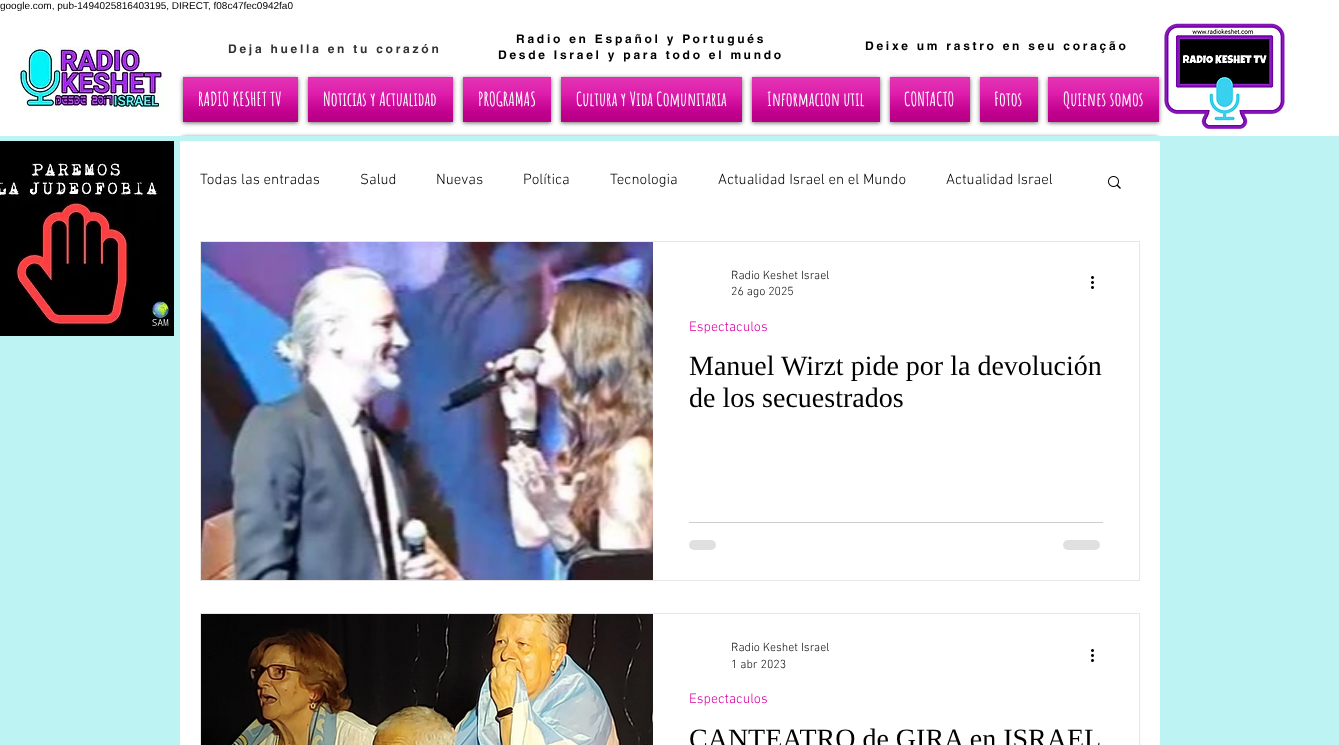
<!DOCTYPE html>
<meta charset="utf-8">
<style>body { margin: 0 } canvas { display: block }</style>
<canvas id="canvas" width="1339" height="745"></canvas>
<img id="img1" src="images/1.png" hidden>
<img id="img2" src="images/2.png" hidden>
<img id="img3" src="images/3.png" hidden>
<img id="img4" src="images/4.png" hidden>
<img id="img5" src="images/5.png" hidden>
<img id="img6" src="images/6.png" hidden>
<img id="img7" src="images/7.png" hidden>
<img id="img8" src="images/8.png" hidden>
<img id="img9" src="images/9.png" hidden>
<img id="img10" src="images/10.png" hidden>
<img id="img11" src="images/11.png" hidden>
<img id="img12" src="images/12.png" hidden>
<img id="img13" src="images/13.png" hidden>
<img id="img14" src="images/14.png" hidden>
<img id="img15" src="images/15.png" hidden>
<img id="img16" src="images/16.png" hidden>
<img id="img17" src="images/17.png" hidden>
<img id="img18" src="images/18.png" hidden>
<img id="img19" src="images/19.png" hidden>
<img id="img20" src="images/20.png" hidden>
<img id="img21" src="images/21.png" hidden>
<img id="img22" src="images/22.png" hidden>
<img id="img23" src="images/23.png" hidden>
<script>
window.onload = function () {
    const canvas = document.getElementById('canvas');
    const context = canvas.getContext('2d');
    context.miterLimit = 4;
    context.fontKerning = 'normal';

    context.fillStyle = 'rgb(255, 255, 255)';
    context.fillRect(0, 0, 1339, 745);
    context.drawImage(document.getElementById('img1'), 15, 46, 152, 66);
    context.fillStyle = 'rgba(0, 0, 0, 0.6)';
    context.filter = 'blur(2px)';
    context.beginPath();
    context.rect(1048, 78, 111, 45);
    context.fill();
    context.filter = 'none';
    context.drawImage(document.getElementById('img2'), 1164, 23, 121, 107);
    context.filter = 'blur(2px)';
    context.beginPath();
    context.rect(183, 78, 115, 45);
    context.fill();
    context.filter = 'none';
    context.fillStyle = 'rgb(219, 0, 161)';
    context.fillRect(183, 77, 115, 45);
    context.drawImage(document.getElementById('img3'), 183, 77, 115, 33);
    context.drawImage(document.getElementById('img4'), 183, 96, 115, 26);
    context.fillStyle = 'rgba(0, 0, 0, 0.6)';
    context.filter = 'blur(2px)';
    context.beginPath();
    context.rect(308, 78, 145, 45);
    context.fill();
    context.filter = 'none';
    context.fillStyle = 'rgb(219, 0, 161)';
    context.fillRect(308, 77, 145, 45);
    context.drawImage(document.getElementById('img5'), 308, 77, 145, 33);
    context.drawImage(document.getElementById('img6'), 308, 96, 145, 26);
    context.fillStyle = 'rgba(0, 0, 0, 0.6)';
    context.filter = 'blur(2px)';
    context.beginPath();
    context.rect(463, 78, 88, 45);
    context.fill();
    context.filter = 'none';
    context.fillStyle = 'rgb(219, 0, 161)';
    context.fillRect(463, 77, 88, 45);
    context.drawImage(document.getElementById('img7'), 463, 77, 88, 33);
    context.drawImage(document.getElementById('img8'), 463, 96, 88, 26);
    context.fillStyle = 'rgba(0, 0, 0, 0.6)';
    context.filter = 'blur(2px)';
    context.beginPath();
    context.rect(561, 78, 181, 45);
    context.fill();
    context.filter = 'none';
    context.fillStyle = 'rgb(219, 0, 161)';
    context.fillRect(561, 77, 181, 45);
    context.drawImage(document.getElementById('img9'), 561, 77, 181, 33);
    context.drawImage(document.getElementById('img10'), 561, 96, 181, 26);
    context.fillStyle = 'rgba(0, 0, 0, 0.6)';
    context.filter = 'blur(2px)';
    context.beginPath();
    context.rect(752, 78, 128, 45);
    context.fill();
    context.filter = 'none';
    context.fillStyle = 'rgb(219, 0, 161)';
    context.fillRect(752, 77, 128, 45);
    context.drawImage(document.getElementById('img11'), 752, 77, 128, 33);
    context.drawImage(document.getElementById('img12'), 752, 96, 128, 26);
    context.fillStyle = 'rgba(0, 0, 0, 0.6)';
    context.filter = 'blur(2px)';
    context.beginPath();
    context.rect(890, 78, 80, 45);
    context.fill();
    context.filter = 'none';
    context.fillStyle = 'rgb(219, 0, 161)';
    context.fillRect(890, 77, 80, 45);
    context.drawImage(document.getElementById('img13'), 890, 77, 80, 33);
    context.drawImage(document.getElementById('img14'), 890, 96, 80, 26);
    context.fillStyle = 'rgba(0, 0, 0, 0.6)';
    context.filter = 'blur(2px)';
    context.beginPath();
    context.rect(980, 78, 58, 45);
    context.fill();
    context.filter = 'none';
    context.fillStyle = 'rgb(219, 0, 161)';
    context.fillRect(980, 77, 58, 45);
    context.drawImage(document.getElementById('img15'), 980, 77, 58, 33);
    context.drawImage(document.getElementById('img16'), 980, 96, 58, 26);
    context.fillRect(1048, 77, 111, 45);
    context.drawImage(document.getElementById('img17'), 1048, 77, 111, 33);
    context.drawImage(document.getElementById('img18'), 1048, 96, 111, 26);
    context.fillStyle = 'rgba(0, 0, 0, 0.6)';
    context.filter = 'blur(2px)';
    context.beginPath();
    context.roundRect(180, 137, 980, 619, 5);
    context.fill();
    context.filter = 'none';
    context.fillStyle = 'rgb(190, 243, 243)';
    context.fillRect(0, 136, 1339, 609);
    context.drawImage(document.getElementById('img19'), 0, 141, 174, 195);
    context.fillStyle = 'rgb(255, 255, 255)';
    context.fillRect(180, 141, 980, 604);
    context.drawImage(document.getElementById('img20'), 1108, 176, 13, 13);
    context.strokeStyle = 'rgb(232, 230, 230)';
    context.strokeRect(200.5, 241.5, 939, 339);
    context.drawImage(document.getElementById('img21'), 201, 242, 452, 338);
    context.drawImage(document.getElementById('img22'), 1091, 276, 3, 13);
    context.fillStyle = 'rgb(204, 204, 204)';
    context.fillRect(689, 522, 414, 1);
    context.fillStyle = 'rgb(224, 224, 224)';
    context.beginPath();
    context.roundRect(689, 540, 27, 10, 5);
    context.fill();
    context.beginPath();
    context.roundRect(1063, 540, 37, 10, 5);
    context.fill();
    context.strokeRect(200.5, 613.5, 939, 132);
    context.drawImage(document.getElementById('img23'), 201, 614, 452, 131);
    context.drawImage(document.getElementById('img22'), 1091, 649, 3, 13);
    context.font = '10px Liberation Sans';
    context.fillStyle = 'rgb(0, 0, 0)';
    context.fillText('google.com, pub-1494025816403195, DIRECT, f08c47fec0942fa0', 0, 9);
    context.fillStyle = 'rgb(255, 255, 255)';
    context.fillRect(2, 11, 57, 1);
    context.letterSpacing = '2.75px';
    context.font = 'bold 12px helvetica';
    context.fillStyle = 'rgb(50, 50, 50)';
    context.fillText('Deja huella en tu corazón', 228, 53);
    context.fillStyle = 'rgb(0, 0, 0)';
    context.fillText('Radio en Español y Portugués', 516, 43);
    context.fillText('Desde Israel y para todo el mundo', 498, 59);
    context.fillText('Deixe um rastro en seu coração', 865, 50);
    context.letterSpacing = '0px';
    context.font = 'bold 19px Amatic SC';
    context.fillStyle = 'rgb(255, 255, 255)';
    context.fillText('RADIO KESHET TV', 198, 106);
    context.fillText('Noticias y Actualidad', 323, 106);
    context.fillText('PROGRAMAS', 478, 106);
    context.fillText('Cultura y Vida Comunitaria', 576, 106);
    context.fillText('Informacion util', 767, 106);
    context.fillText('CONTACTO', 904, 106);
    context.fillText('Fotos', 994, 106);
    context.fillText('Quienes somos', 1063, 106);
    context.font = '300 15px "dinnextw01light"';
    context.fillStyle = 'rgb(0, 0, 0)';
    context.fillText('Todas las entradas', 200, 184);
    context.fillText('Salud', 360, 184);
    context.fillText('Nuevas', 436, 184);
    context.fillText('Política', 523, 184);
    context.fillText('Tecnologia', 610, 184);
    context.fillText('Actualidad Israel en el Mundo', 718, 184);
    context.fillText('Actualidad Israel', 946, 184);
    context.font = '300 12px "dinnextw01light"';
    context.fillText('Radio Keshet Israel', 731, 279);
    context.fillText('26 ago 2025', 731, 295);
    context.font = '300 14px "dinnextw01light"';
    context.fillStyle = 'rgb(219, 0, 161)';
    context.fillText('Espectaculos', 689, 331);
    context.font = '28px Liberation Serif';
    context.fillStyle = 'rgb(0, 0, 0)';
    context.fillText('Manuel Wirzt pide por la devolución', 689, 375);
    context.fillText('de los secuestrados', 689, 407);
    context.font = '300 12px "dinnextw01light"';
    context.fillText('Radio Keshet Israel', 731, 651);
    context.fillText('1 abr 2023', 731, 668);
    context.font = '300 14px "dinnextw01light"';
    context.fillStyle = 'rgb(219, 0, 161)';
    context.fillText('Espectaculos', 689, 703);
    context.font = '28px Liberation Serif';
    context.fillStyle = 'rgb(0, 0, 0)';
    context.fillText('CANTEATRO de GIRA en ISRAEL', 689, 748);
};
</script>
